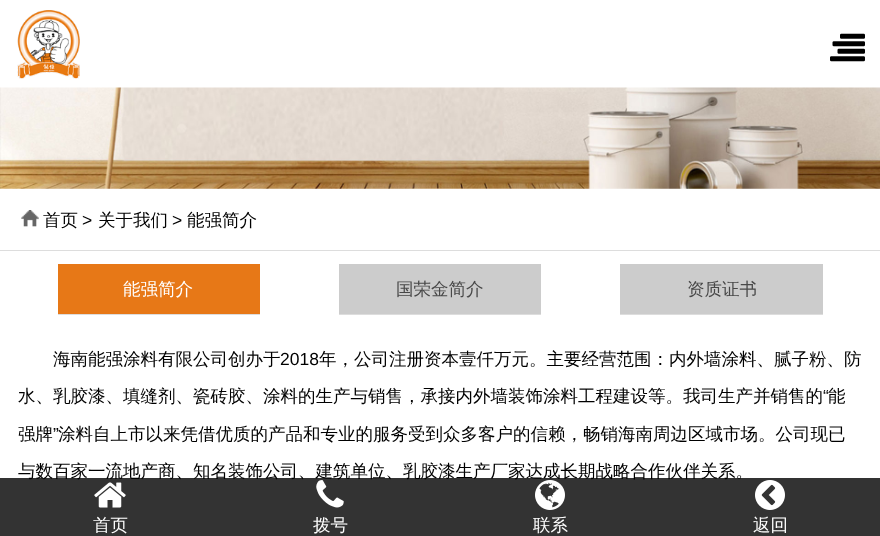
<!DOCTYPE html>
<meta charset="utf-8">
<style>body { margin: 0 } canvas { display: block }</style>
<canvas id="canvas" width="880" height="536"></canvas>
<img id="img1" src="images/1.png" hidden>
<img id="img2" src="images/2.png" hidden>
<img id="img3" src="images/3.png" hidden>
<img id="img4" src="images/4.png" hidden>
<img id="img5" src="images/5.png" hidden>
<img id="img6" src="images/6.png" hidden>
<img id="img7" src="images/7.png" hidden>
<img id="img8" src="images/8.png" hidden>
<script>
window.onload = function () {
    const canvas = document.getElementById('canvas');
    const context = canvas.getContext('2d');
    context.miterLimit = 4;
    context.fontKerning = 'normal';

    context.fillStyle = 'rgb(255, 255, 255)';
    context.fillRect(0, 0, 880, 536);
    context.drawImage(document.getElementById('img1'), 17, 10, 63, 69);
    context.drawImage(document.getElementById('img2'), 830, 33, 35, 29);
    context.drawImage(document.getElementById('img3'), 0, 87, 880, 102);
    context.fillStyle = 'rgb(221, 221, 221)';
    context.fillRect(0, 250, 880, 1);
    context.drawImage(document.getElementById('img4'), 21, 210, 18, 17);
    context.fillStyle = 'rgb(231, 120, 23)';
    context.fillRect(58, 264, 202, 50);
    context.fillStyle = 'rgb(221, 221, 221)';
    context.fillRect(58, 314, 202, 1);
    context.fillStyle = 'rgb(204, 204, 204)';
    context.fillRect(339, 264, 202, 50);
    context.fillStyle = 'rgb(221, 221, 221)';
    context.fillRect(339, 314, 202, 1);
    context.fillStyle = 'rgb(204, 204, 204)';
    context.fillRect(620, 264, 203, 50);
    context.fillStyle = 'rgb(221, 221, 221)';
    context.fillRect(620, 314, 203, 1);
    context.font = '500 17.5px WenQuanYi Zen Hei';
    context.fillStyle = 'rgb(0, 0, 0)';
    context.fillText('首页', 43, 226);
    context.font = '17.5px Liberation Sans';
    context.fillText('>', 82, 226);
    context.font = '500 17.5px WenQuanYi Zen Hei';
    context.fillText('关于我们', 98, 226);
    context.font = '17.5px Liberation Sans';
    context.fillText('>', 172, 226);
    context.font = '500 17.5px WenQuanYi Zen Hei';
    context.fillText('能强简介', 187, 226);
    context.fillStyle = 'rgb(255, 255, 255)';
    context.fillText('能强简介', 123, 295);
    context.fillStyle = 'rgb(72, 72, 72)';
    context.fillText('国荣金简介', 396, 295);
    context.fillText('资质证书', 687, 295);
    context.fillStyle = 'rgb(0, 0, 0)';
    context.fillText('海南能强涂料有限公司创办于', 53, 365);
    context.font = '17.5px Liberation Sans';
    context.fillText('2018', 280, 365);
    context.font = '500 17.5px WenQuanYi Zen Hei';
    context.fillText('年，公司注册资本壹仟万元。主要经营范围：内外墙涂料、腻子粉、防', 319, 365);
    context.fillText('水、乳胶漆、填缝剂、瓷砖胶、涂料的生产与销售，承接内外墙装饰涂料工程建设等。我司生产并销售的', 18, 402);
    context.font = '17.5px Liberation Sans';
    context.fillText('“', 823, 402);
    context.font = '500 17.5px WenQuanYi Zen Hei';
    context.fillText('能', 828, 402);
    context.fillText('强牌', 18, 440);
    context.font = '17.5px Liberation Sans';
    context.fillText('”', 53, 440);
    context.font = '500 17.5px WenQuanYi Zen Hei';
    context.fillText('涂料自上市以来凭借优质的产品和专业的服务受到众多客户的信赖，畅销海南周边区域市场。公司现已', 58, 440);
    context.fillText('与数百家一流地产商、知名装饰公司、建筑单位、乳胶漆生产厂家达成长期战略合作伙伴关系。', 18, 477);
    context.fillStyle = 'rgba(0, 0, 0, 0.8)';
    context.fillRect(0, 478, 880, 58);
    context.drawImage(document.getElementById('img5'), 94, 482, 32, 26);
    context.fillStyle = 'rgb(255, 255, 255)';
    context.fillText('首页', 93, 531);
    context.drawImage(document.getElementById('img6'), 316, 480, 28, 28);
    context.fillText('拨号', 313, 531);
    context.drawImage(document.getElementById('img7'), 535, 480, 30, 30);
    context.fillText('联系', 533, 531);
    context.drawImage(document.getElementById('img8'), 755, 480, 30, 30);
    context.fillText('返回', 753, 531);
};
</script>
